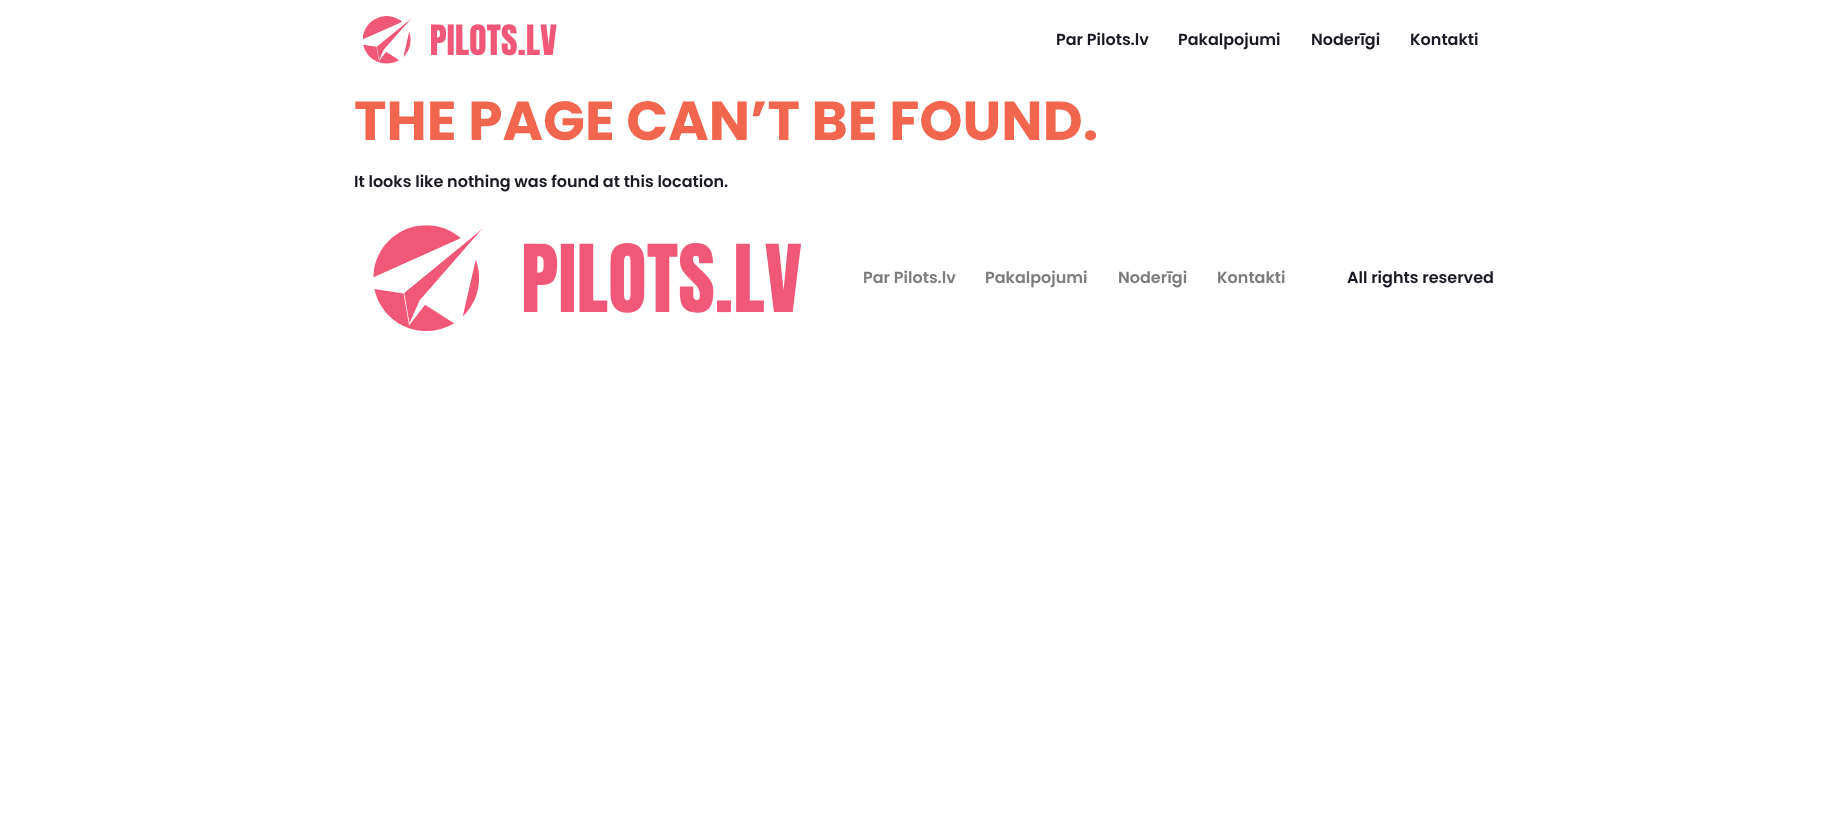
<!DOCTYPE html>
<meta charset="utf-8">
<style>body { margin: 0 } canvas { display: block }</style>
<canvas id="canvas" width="1847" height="831"></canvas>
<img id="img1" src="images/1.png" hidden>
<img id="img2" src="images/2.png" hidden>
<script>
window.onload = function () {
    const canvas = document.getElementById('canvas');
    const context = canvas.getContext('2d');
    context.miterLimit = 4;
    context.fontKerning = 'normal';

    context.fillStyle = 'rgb(255, 255, 255)';
    context.fillRect(0, 0, 1847, 831);
    context.drawImage(document.getElementById('img1'), 363, 16, 194, 48);
    context.drawImage(document.getElementById('img2'), 373, 225, 428, 106);
    context.font = '600 16px Poppins';
    context.fillStyle = 'rgb(24, 25, 34)';
    context.fillText('Par Pilots.lv', 1056, 45);
    context.fillText('Pakalpojumi', 1178, 45);
    context.fillText('Noderīgi', 1311, 45);
    context.fillText('Kontakti', 1410, 45);
    context.font = 'bold 55px Poppins';
    context.fillStyle = 'rgb(242, 102, 80)';
    context.fillText('THE PAGE CAN’T BE FOUND.', 354, 140);
    context.font = '600 16px Poppins';
    context.fillStyle = 'rgb(24, 25, 34)';
    context.fillText('It looks like nothing was found at this location.', 354, 187);
    context.fillStyle = 'rgb(125, 124, 124)';
    context.fillText('Par Pilots.lv', 863, 283);
    context.fillText('Pakalpojumi', 985, 283);
    context.fillText('Noderīgi', 1118, 283);
    context.fillText('Kontakti', 1217, 283);
    context.fillStyle = 'rgb(24, 25, 34)';
    context.fillText('All rights reserved', 1347, 283);
};
</script>
